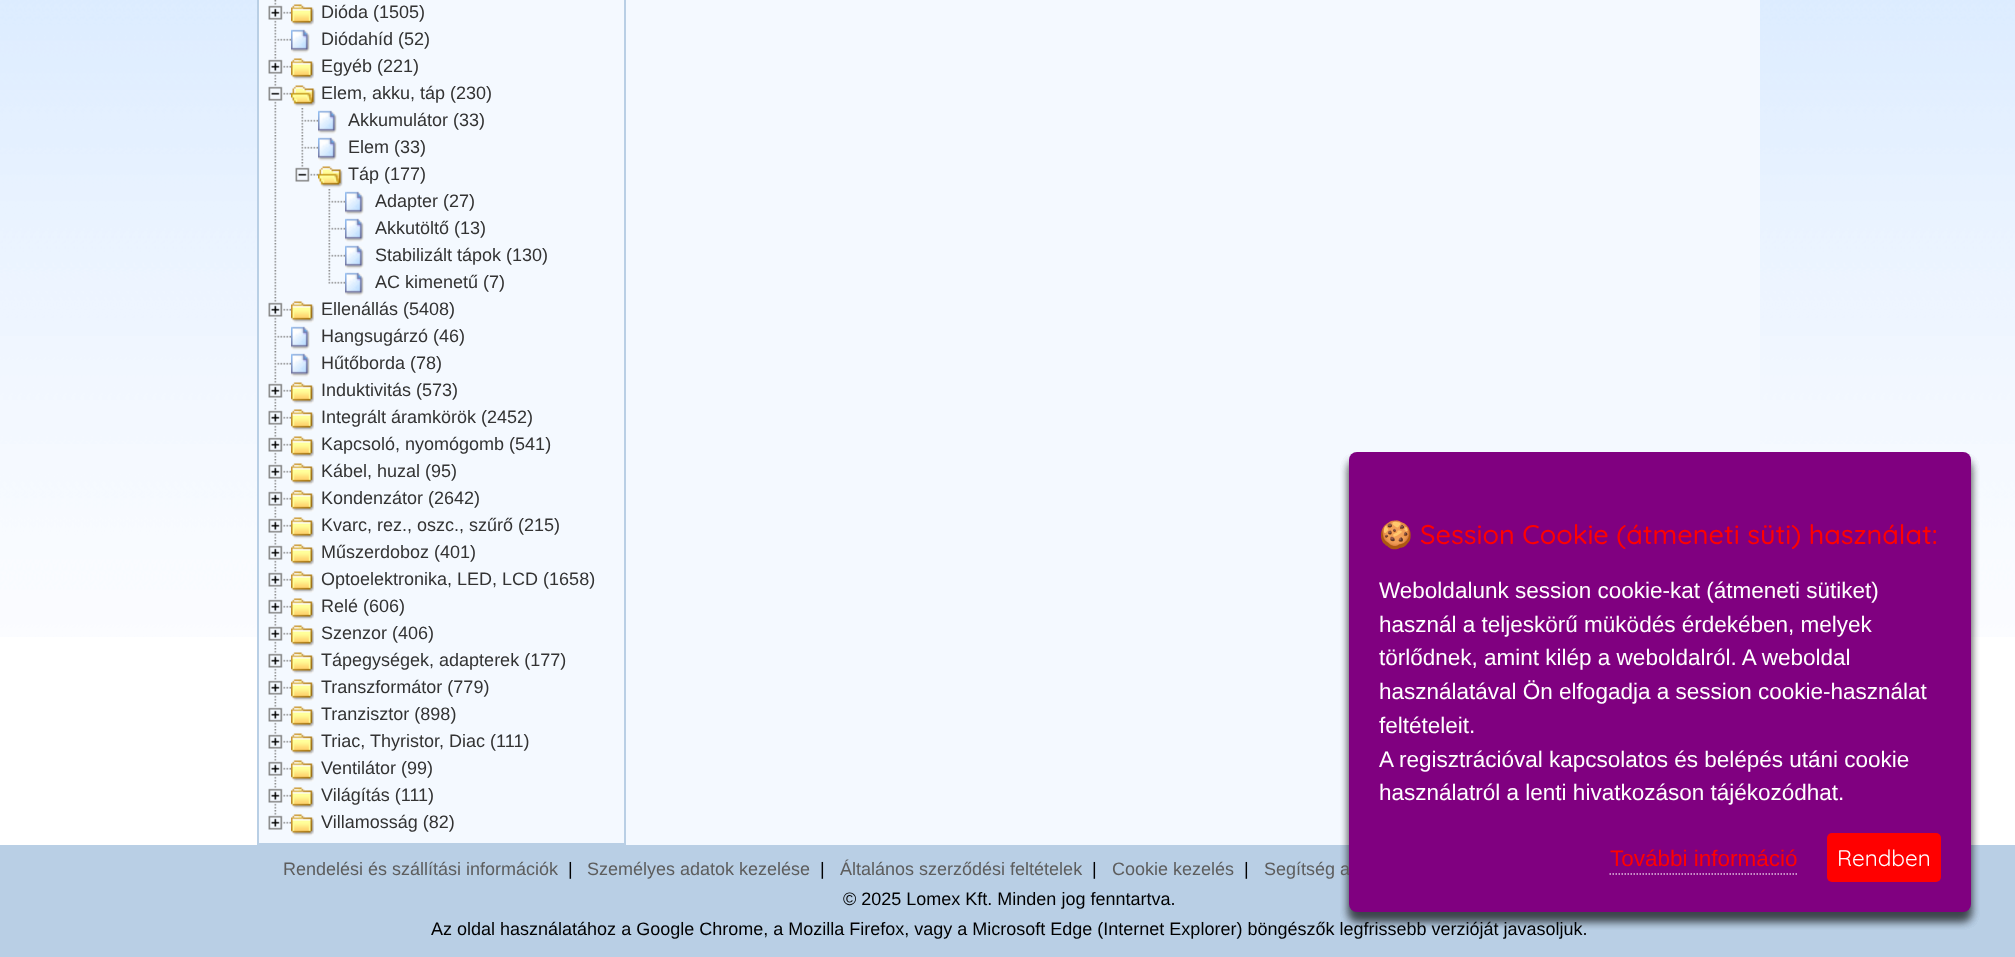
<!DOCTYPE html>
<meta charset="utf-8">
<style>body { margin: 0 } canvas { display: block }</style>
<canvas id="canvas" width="2015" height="957"></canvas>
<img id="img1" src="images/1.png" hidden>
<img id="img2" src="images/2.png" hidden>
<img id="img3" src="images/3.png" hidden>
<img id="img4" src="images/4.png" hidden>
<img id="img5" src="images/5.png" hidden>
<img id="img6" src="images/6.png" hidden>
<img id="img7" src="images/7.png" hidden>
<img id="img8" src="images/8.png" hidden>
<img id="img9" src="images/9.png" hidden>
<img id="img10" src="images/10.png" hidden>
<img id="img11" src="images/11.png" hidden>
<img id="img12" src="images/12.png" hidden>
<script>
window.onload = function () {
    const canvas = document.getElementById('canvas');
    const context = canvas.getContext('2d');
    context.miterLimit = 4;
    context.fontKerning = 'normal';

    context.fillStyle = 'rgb(255, 255, 255)';
    context.fillRect(0, 0, 2015, 957);
    context.drawImage(document.getElementById('img1'), 0, 0, 2015, 637);
    context.fillStyle = 'rgb(244, 249, 255)';
    context.fillRect(259, 0, 1501, 845);
    context.strokeStyle = 'rgb(185, 207, 229)';
    context.lineWidth = 2;
    context.strokeRect(258, -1, 367, 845);
    context.drawImage(document.getElementById('img2'), 268, 0, 23, 26);
    context.drawImage(document.getElementById('img3'), 291, 4, 23, 22);
    context.drawImage(document.getElementById('img4'), 274, 27, 17, 26);
    context.drawImage(document.getElementById('img5'), 291, 29, 19, 24);
    context.drawImage(document.getElementById('img2'), 268, 54, 23, 26);
    context.drawImage(document.getElementById('img3'), 291, 58, 23, 22);
    context.drawImage(document.getElementById('img6'), 268, 81, 23, 26);
    context.drawImage(document.getElementById('img7'), 291, 85, 25, 22);
    context.drawImage(document.getElementById('img8'), 274, 108, 3, 26);
    context.drawImage(document.getElementById('img9'), 301, 108, 17, 26);
    context.drawImage(document.getElementById('img5'), 318, 110, 19, 24);
    context.drawImage(document.getElementById('img8'), 274, 135, 3, 26);
    context.drawImage(document.getElementById('img9'), 301, 135, 17, 26);
    context.drawImage(document.getElementById('img5'), 318, 137, 19, 24);
    context.drawImage(document.getElementById('img8'), 274, 162, 3, 26);
    context.drawImage(document.getElementById('img10'), 295, 162, 23, 20);
    context.drawImage(document.getElementById('img7'), 318, 166, 25, 22);
    context.drawImage(document.getElementById('img8'), 274, 189, 3, 26);
    context.drawImage(document.getElementById('img9'), 328, 189, 17, 26);
    context.drawImage(document.getElementById('img5'), 345, 191, 19, 24);
    context.drawImage(document.getElementById('img8'), 274, 216, 3, 26);
    context.drawImage(document.getElementById('img9'), 328, 216, 17, 26);
    context.drawImage(document.getElementById('img5'), 345, 218, 19, 24);
    context.drawImage(document.getElementById('img8'), 274, 243, 3, 26);
    context.drawImage(document.getElementById('img9'), 328, 243, 17, 26);
    context.drawImage(document.getElementById('img5'), 345, 245, 19, 24);
    context.drawImage(document.getElementById('img8'), 274, 270, 3, 26);
    context.drawImage(document.getElementById('img11'), 328, 270, 17, 14);
    context.drawImage(document.getElementById('img5'), 345, 272, 19, 24);
    context.drawImage(document.getElementById('img2'), 268, 297, 23, 26);
    context.drawImage(document.getElementById('img3'), 291, 301, 23, 22);
    context.drawImage(document.getElementById('img4'), 274, 324, 17, 26);
    context.drawImage(document.getElementById('img5'), 291, 326, 19, 24);
    context.drawImage(document.getElementById('img4'), 274, 351, 17, 26);
    context.drawImage(document.getElementById('img5'), 291, 353, 19, 24);
    context.drawImage(document.getElementById('img2'), 268, 378, 23, 26);
    context.drawImage(document.getElementById('img3'), 291, 382, 23, 22);
    context.drawImage(document.getElementById('img2'), 268, 405, 23, 26);
    context.drawImage(document.getElementById('img3'), 291, 409, 23, 22);
    context.drawImage(document.getElementById('img2'), 268, 432, 23, 26);
    context.drawImage(document.getElementById('img3'), 291, 436, 23, 22);
    context.drawImage(document.getElementById('img2'), 268, 459, 23, 26);
    context.drawImage(document.getElementById('img3'), 291, 463, 23, 22);
    context.drawImage(document.getElementById('img2'), 268, 486, 23, 26);
    context.drawImage(document.getElementById('img3'), 291, 490, 23, 22);
    context.drawImage(document.getElementById('img2'), 268, 513, 23, 26);
    context.drawImage(document.getElementById('img3'), 291, 517, 23, 22);
    context.drawImage(document.getElementById('img2'), 268, 540, 23, 26);
    context.drawImage(document.getElementById('img3'), 291, 544, 23, 22);
    context.drawImage(document.getElementById('img2'), 268, 567, 23, 26);
    context.drawImage(document.getElementById('img3'), 291, 571, 23, 22);
    context.drawImage(document.getElementById('img2'), 268, 594, 23, 26);
    context.drawImage(document.getElementById('img3'), 291, 598, 23, 22);
    context.drawImage(document.getElementById('img2'), 268, 621, 23, 26);
    context.drawImage(document.getElementById('img3'), 291, 625, 23, 22);
    context.drawImage(document.getElementById('img2'), 268, 648, 23, 26);
    context.drawImage(document.getElementById('img3'), 291, 652, 23, 22);
    context.drawImage(document.getElementById('img2'), 268, 675, 23, 26);
    context.drawImage(document.getElementById('img3'), 291, 679, 23, 22);
    context.drawImage(document.getElementById('img2'), 268, 702, 23, 26);
    context.drawImage(document.getElementById('img3'), 291, 706, 23, 22);
    context.drawImage(document.getElementById('img2'), 268, 729, 23, 26);
    context.drawImage(document.getElementById('img3'), 291, 733, 23, 22);
    context.drawImage(document.getElementById('img2'), 268, 756, 23, 26);
    context.drawImage(document.getElementById('img3'), 291, 760, 23, 22);
    context.drawImage(document.getElementById('img2'), 268, 783, 23, 26);
    context.drawImage(document.getElementById('img3'), 291, 787, 23, 22);
    context.drawImage(document.getElementById('img12'), 268, 810, 23, 20);
    context.drawImage(document.getElementById('img3'), 291, 814, 23, 22);
    context.fillStyle = 'rgb(185, 207, 229)';
    context.fillRect(0, 845, 2015, 112);
    context.fillStyle = 'rgba(0, 0, 0, 0.22)';
    context.filter = 'blur(4.5px)';
    context.beginPath();
    context.roundRect(1349, 461, 622, 460, 8);
    context.fill();
    context.filter = 'none';
    context.fillStyle = 'rgba(0, 0, 0, 0.25)';
    context.filter = 'blur(4.5px)';
    context.beginPath();
    context.roundRect(1349, 461, 622, 460, 8);
    context.fill();
    context.filter = 'none';
    context.filter = 'blur(4.5px)';
    context.beginPath();
    context.roundRect(1349, 461, 622, 460, 8);
    context.fill();
    context.filter = 'none';
    context.filter = 'blur(4.5px)';
    context.beginPath();
    context.roundRect(1349, 461, 622, 460, 8);
    context.fill();
    context.filter = 'none';
    context.font = '18px Liberation Sans';
    context.fillStyle = 'rgb(51, 51, 51)';
    context.fillText('Dióda (1505)', 321, 18);
    context.fillText('Diódahíd (52)', 321, 45);
    context.fillText('Egyéb (221)', 321, 72);
    context.fillText('Elem, akku, táp (230)', 321, 99);
    context.fillText('Akkumulátor (33)', 348, 126);
    context.fillText('Elem (33)', 348, 153);
    context.fillText('Táp (177)', 348, 180);
    context.fillText('Adapter (27)', 375, 207);
    context.fillText('Akkutöltő (13)', 375, 234);
    context.fillText('Stabilizált tápok (130)', 375, 261);
    context.fillText('AC kimenetű (7)', 375, 288);
    context.fillText('Ellenállás (5408)', 321, 315);
    context.fillText('Hangsugárzó (46)', 321, 342);
    context.fillText('Hűtőborda (78)', 321, 369);
    context.fillText('Induktivitás (573)', 321, 396);
    context.fillText('Integrált áramkörök (2452)', 321, 423);
    context.fillText('Kapcsoló, nyomógomb (541)', 321, 450);
    context.fillText('Kábel, huzal (95)', 321, 477);
    context.fillText('Kondenzátor (2642)', 321, 504);
    context.fillText('Kvarc, rez., oszc., szűrő (215)', 321, 531);
    context.fillText('Műszerdoboz (401)', 321, 558);
    context.fillText('Optoelektronika, LED, LCD (1658)', 321, 585);
    context.fillText('Relé (606)', 321, 612);
    context.fillText('Szenzor (406)', 321, 639);
    context.fillText('Tápegységek, adapterek (177)', 321, 666);
    context.fillText('Transzformátor (779)', 321, 693);
    context.fillText('Tranzisztor (898)', 321, 720);
    context.fillText('Triac, Thyristor, Diac (111)', 321, 747);
    context.fillText('Ventilátor (99)', 321, 774);
    context.fillText('Világítás (111)', 321, 801);
    context.fillText('Villamosság (82)', 321, 828);
    context.fillStyle = 'rgb(93, 93, 93)';
    context.fillText('Rendelési és szállítási információk', 283, 875);
    context.fillStyle = 'rgb(0, 0, 0)';
    context.fillText('|', 568, 875);
    context.fillStyle = 'rgb(93, 93, 93)';
    context.fillText('Személyes adatok kezelése', 587, 875);
    context.fillStyle = 'rgb(0, 0, 0)';
    context.fillText('|', 820, 875);
    context.fillStyle = 'rgb(93, 93, 93)';
    context.fillText('Általános szerződési feltételek', 840, 875);
    context.fillStyle = 'rgb(0, 0, 0)';
    context.fillText('|', 1092, 875);
    context.fillStyle = 'rgb(93, 93, 93)';
    context.fillText('Cookie kezelés', 1112, 875);
    context.fillStyle = 'rgb(0, 0, 0)';
    context.fillText('|', 1244, 875);
    context.fillStyle = 'rgb(93, 93, 93)';
    context.fillText('Segítség a', 1264, 875);
    context.fillStyle = 'rgb(0, 0, 0)';
    context.fillText('© 2025 Lomex Kft. Minden jog fenntartva.', 843, 905);
    context.fillText('Az oldal használatához a Google Chrome, a Mozilla Firefox, vagy a Microsoft Edge (Internet Explorer) böngészők legfrissebb verzióját javasoljuk.', 431, 935);
    context.fillStyle = 'rgb(128, 0, 128)';
    context.beginPath();
    context.roundRect(1349, 452, 622, 460, 8);
    context.fill();
    context.font = '27px Noto Color Emoji';
    context.fillStyle = 'rgb(255, 0, 0)';
    context.fillText('🍪', 1379, 544);
    context.font = '500 27px Quicksand';
    context.fillText('Session Cookie (átmeneti süti) használat:', 1420, 544);
    context.font = '22.5px Liberation Sans';
    context.fillStyle = 'rgb(255, 255, 255)';
    context.fillText('Weboldalunk session cookie-kat (átmeneti sütiket)', 1379, 598);
    context.fillText('használ a teljeskörű müködés érdekében, melyek', 1379, 632);
    context.fillText('törlődnek, amint kilép a weboldalról. A weboldal', 1379, 665);
    context.fillText('használatával Ön elfogadja a session cookie-használat', 1379, 699);
    context.fillText('feltételeit.', 1379, 733);
    context.fillText('A regisztrációval kapcsolatos és belépés utáni cookie', 1379, 767);
    context.fillText('használatról a lenti hivatkozáson tájékozódhat.', 1379, 800);
    context.fillStyle = 'rgb(255, 0, 0)';
    context.fillText('További információ', 1610, 866);
    context.beginPath();
    context.moveTo(1609.5, 874);
    context.lineTo(1797, 874);
    context.strokeStyle = 'rgb(223, 191, 223)';
    context.lineWidth = 1.5;
    context.setLineDash([1.5, 1.5]);
    context.stroke();
    context.beginPath();
    context.roundRect(1827, 833, 114, 49, 5);
    context.fill();
    context.font = '22.5px Quicksand';
    context.fillStyle = 'rgb(255, 255, 255)';
    context.fillText('Rendben', 1837, 866);
};
</script>
